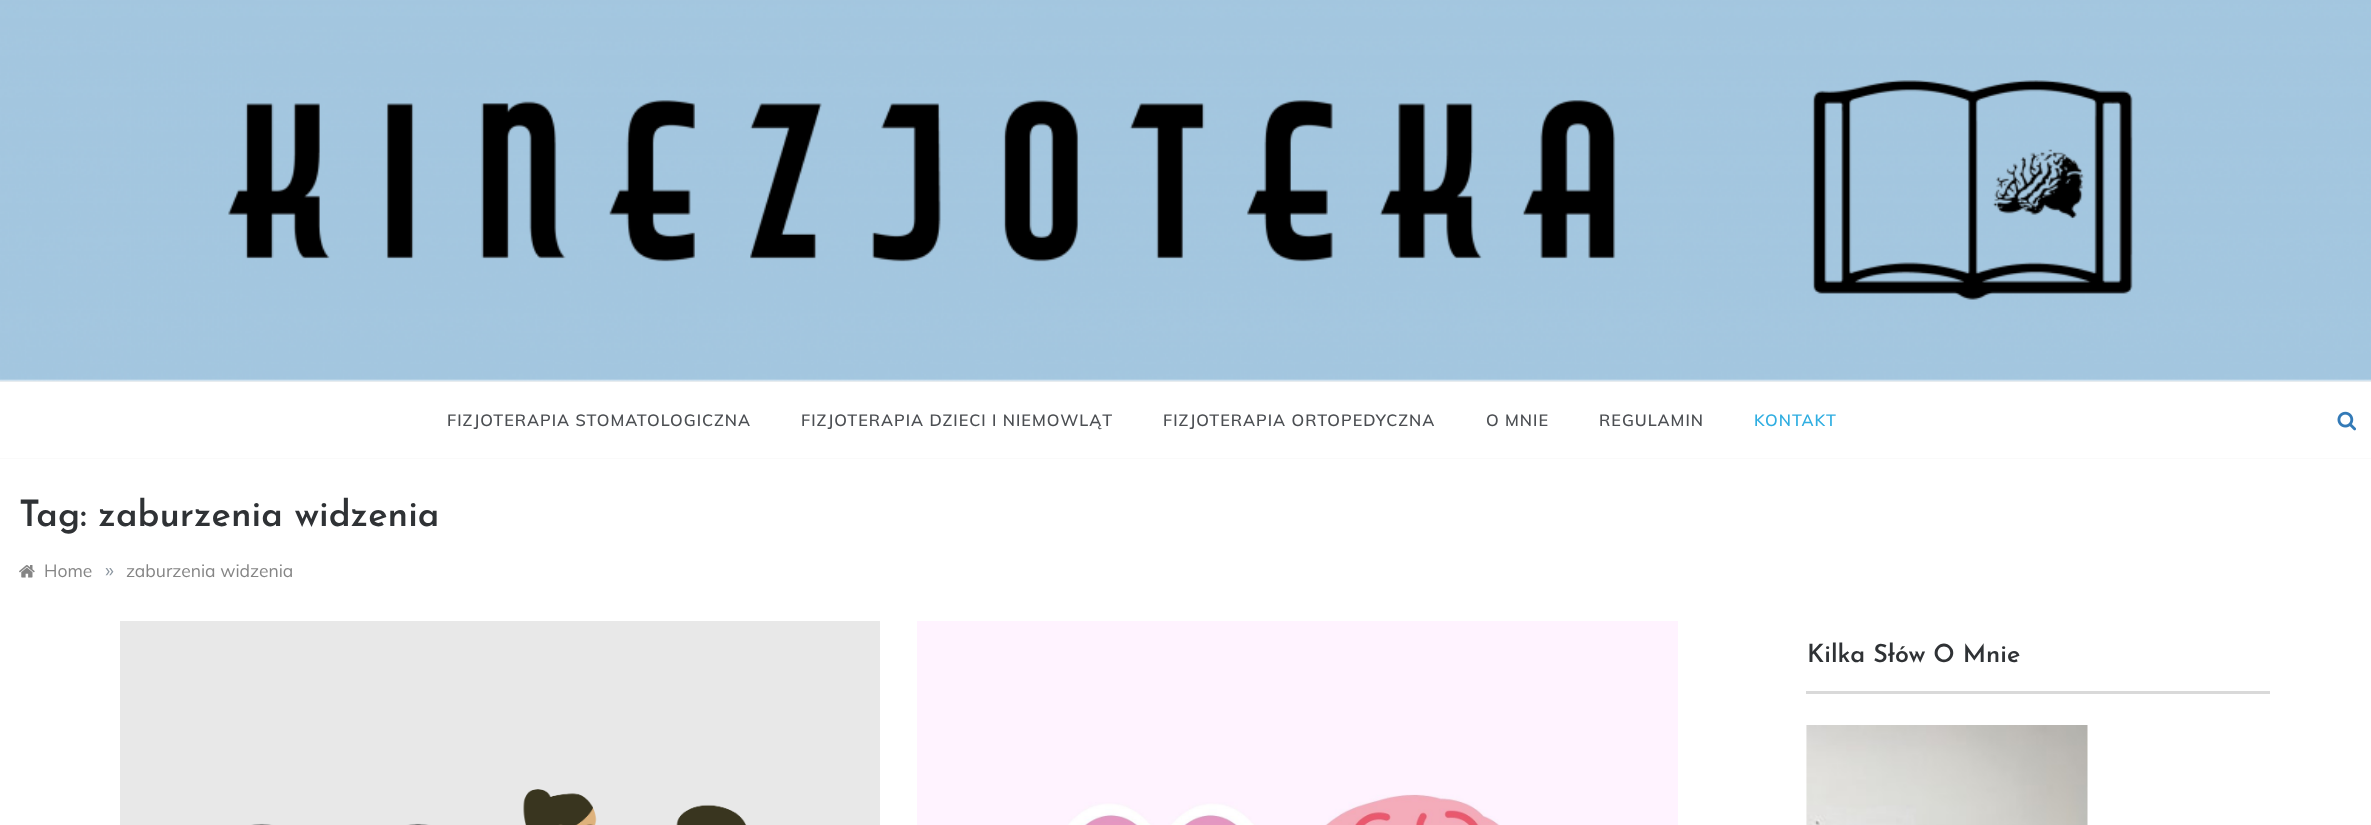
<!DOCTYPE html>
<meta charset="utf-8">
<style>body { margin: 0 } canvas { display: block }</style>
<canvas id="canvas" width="2371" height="825"></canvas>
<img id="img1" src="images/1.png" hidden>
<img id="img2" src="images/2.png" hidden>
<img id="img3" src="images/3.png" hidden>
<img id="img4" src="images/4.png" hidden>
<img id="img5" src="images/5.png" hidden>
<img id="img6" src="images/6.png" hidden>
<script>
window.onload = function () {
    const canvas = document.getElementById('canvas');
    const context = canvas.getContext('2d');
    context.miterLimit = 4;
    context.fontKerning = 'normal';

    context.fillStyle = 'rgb(255, 255, 255)';
    context.fillRect(0, 0, 2371, 825);
    context.fillStyle = 'rgb(250, 250, 250)';
    context.fillRect(0, 458, 2371, 1);
    context.fillStyle = 'rgb(242, 242, 242)';
    context.fillRect(0, 381, 2371, 1);
    context.drawImage(document.getElementById('img1'), 0, 0, 2371, 382);
    context.drawImage(document.getElementById('img2'), 2337, 411, 19, 20);
    context.drawImage(document.getElementById('img3'), 19, 565, 16, 13);
    context.fillStyle = 'rgb(232, 232, 232)';
    context.fillRect(120, 621, 760, 204);
    context.drawImage(document.getElementById('img4'), 251, 789, 496, 36);
    context.fillStyle = 'rgb(255, 243, 255)';
    context.fillRect(917, 621, 761, 204);
    context.drawImage(document.getElementById('img5'), 1068, 794, 432, 31);
    context.fillStyle = 'rgb(217, 217, 217)';
    context.fillRect(1806, 691, 464, 3);
    context.drawImage(document.getElementById('img6'), 1806, 725, 282, 100);
    context.letterSpacing = '1px';
    context.font = '600 16.25px Muli';
    context.fillStyle = 'rgb(76, 79, 83)';
    context.fillText('FIZJOTERAPIA STOMATOLOGICZNA', 447, 426);
    context.fillText('FIZJOTERAPIA DZIECI I NIEMOWLĄT', 801, 426);
    context.fillText('FIZJOTERAPIA ORTOPEDYCZNA', 1163, 426);
    context.fillText('O MNIE', 1486, 426);
    context.fillText('REGULAMIN', 1599, 426);
    context.fillStyle = 'rgb(48, 174, 225)';
    context.fillText('KONTAKT', 1754, 426);
    context.letterSpacing = '0px';
    context.font = '600 36.25px Josefin Sans';
    context.fillStyle = 'rgb(47, 50, 53)';
    context.fillText('Tag: zaburzenia widzenia', 19, 526);
    context.font = '17.5px Muli';
    context.fillStyle = 'rgb(133, 133, 133)';
    context.fillText('Home', 44, 577);
    context.font = '20px Muli';
    context.fillStyle = 'rgb(141, 151, 161)';
    context.fillText('»', 105, 577);
    context.font = '17.5px Muli';
    context.fillStyle = 'rgb(133, 133, 133)';
    context.fillText('zaburzenia widzenia', 126, 577);
    context.font = '600 25px Josefin Sans';
    context.fillStyle = 'rgb(47, 50, 53)';
    context.fillText('Kilka Słów O Mnie', 1807, 662);
};
</script>
